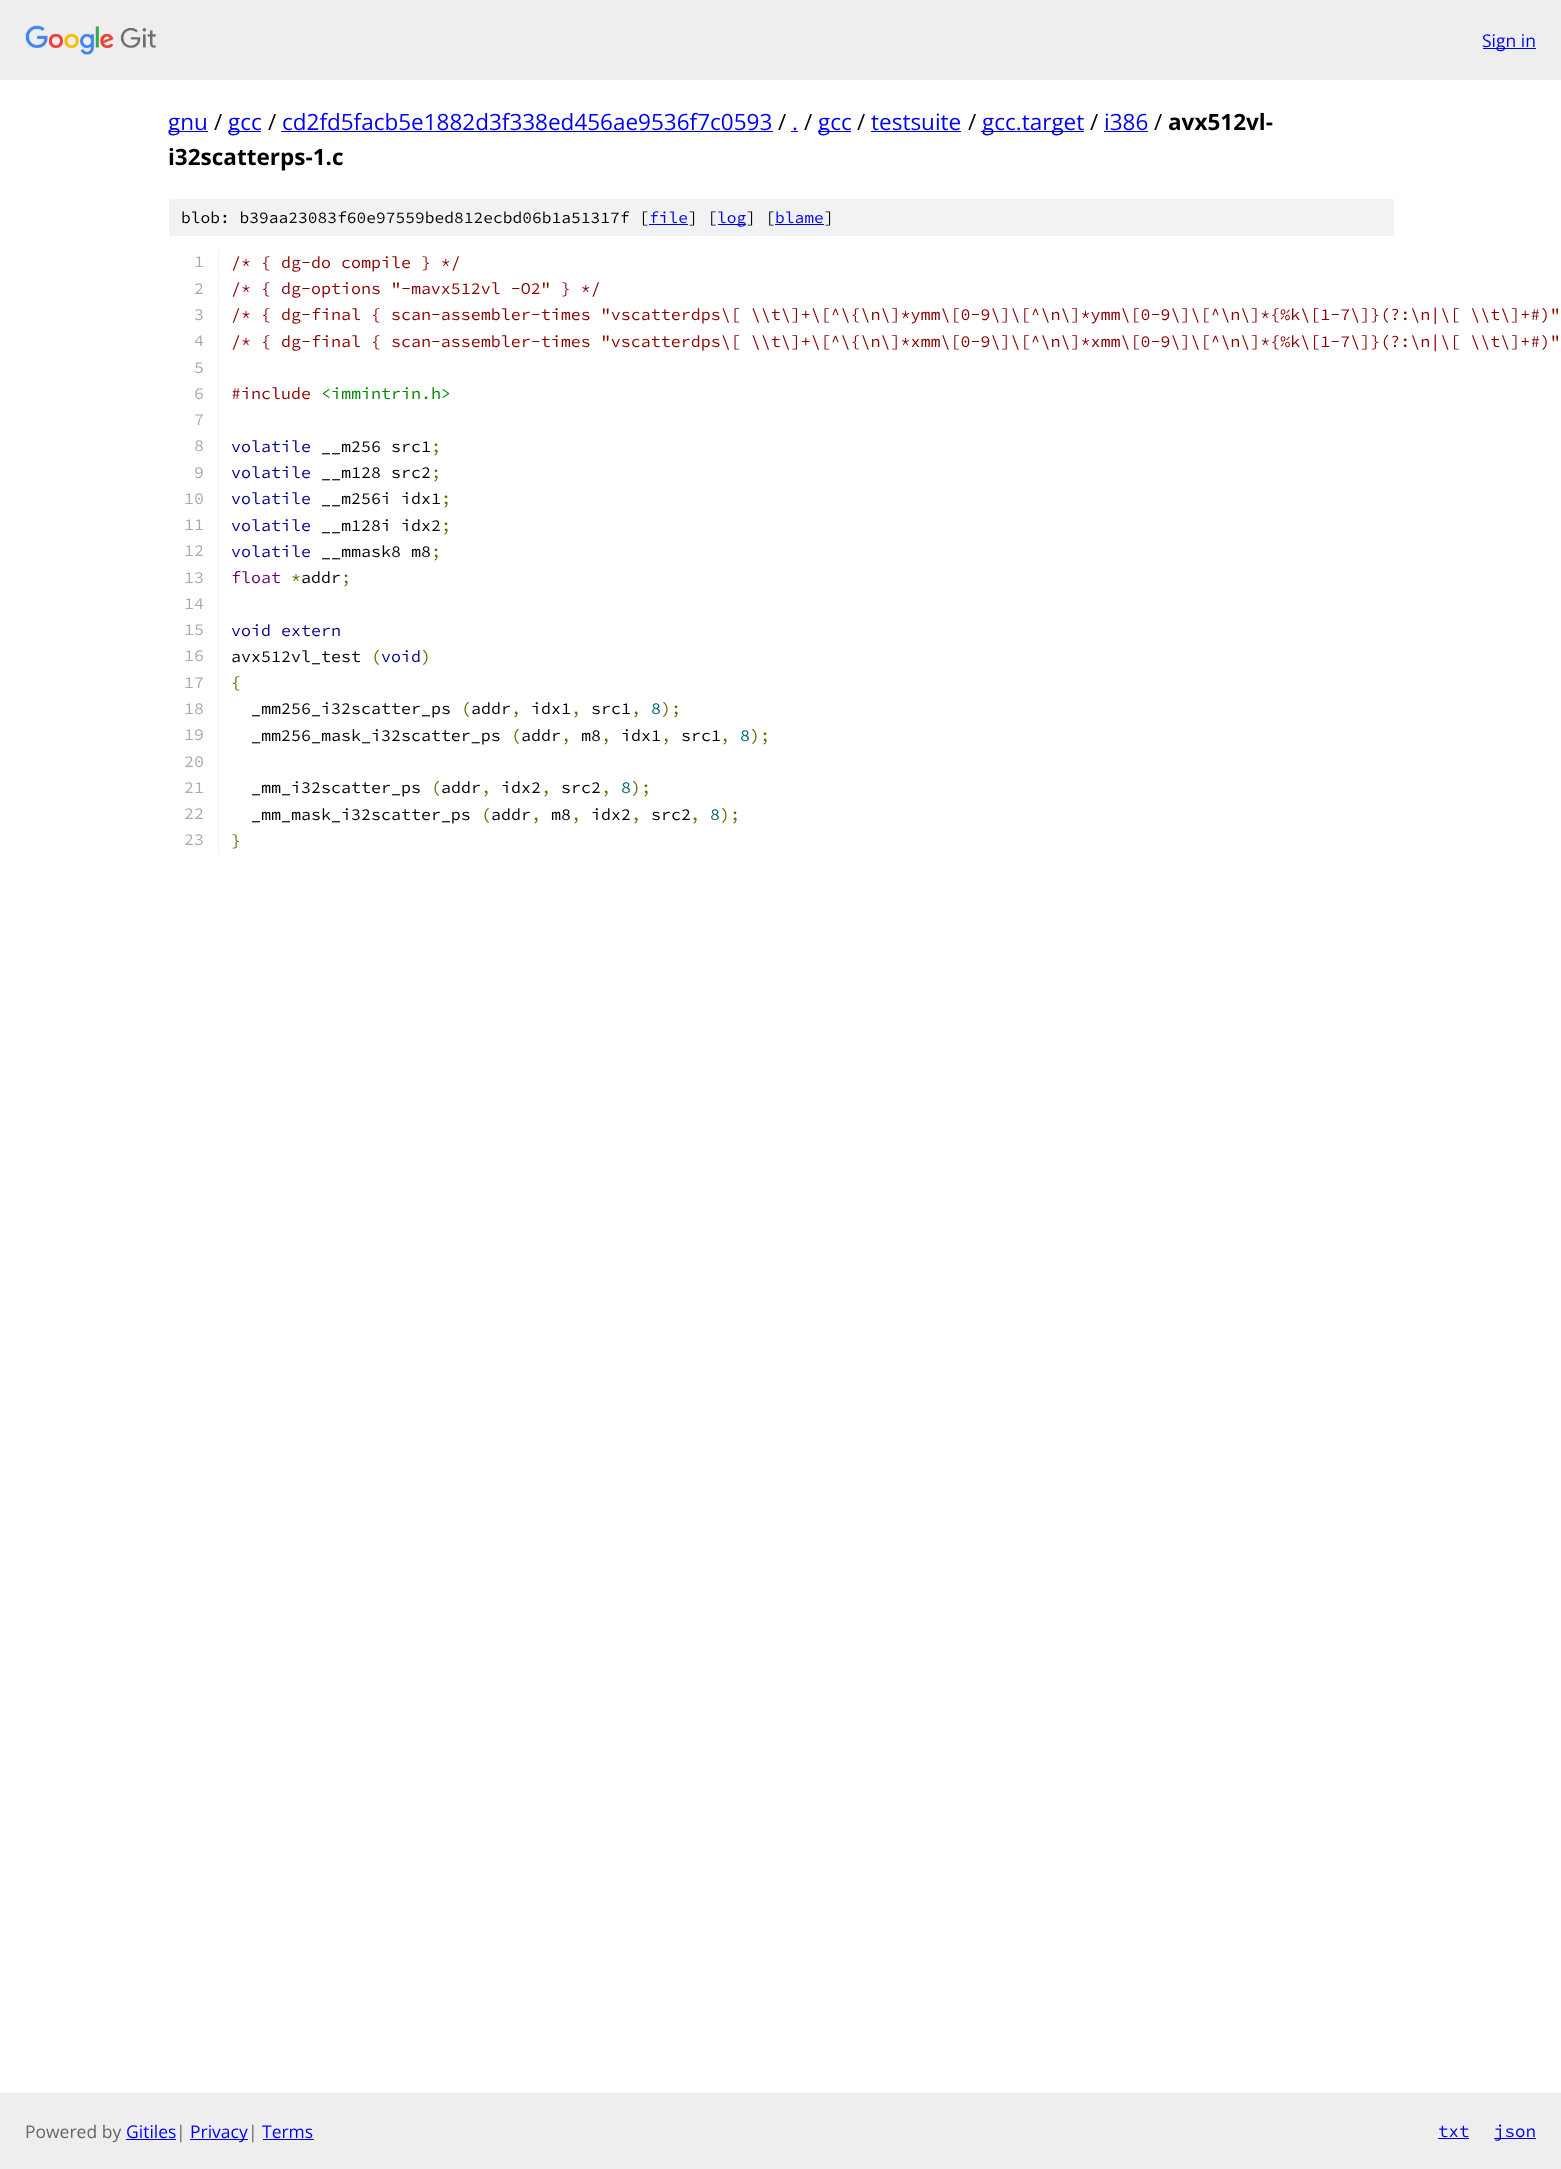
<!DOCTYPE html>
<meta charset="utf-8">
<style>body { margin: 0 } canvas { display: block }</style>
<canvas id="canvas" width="1561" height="2169"></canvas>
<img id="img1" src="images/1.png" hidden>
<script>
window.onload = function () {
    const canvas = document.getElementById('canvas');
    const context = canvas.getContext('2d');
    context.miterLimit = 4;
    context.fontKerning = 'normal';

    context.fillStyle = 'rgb(255, 255, 255)';
    context.fillRect(0, 0, 1561, 2169);
    context.fillStyle = 'rgb(238, 238, 238)';
    context.fillRect(0, 0, 1561, 80);
    context.drawImage(document.getElementById('img1'), 25, 25, 131, 30);
    context.fillStyle = 'rgb(0, 0, 238)';
    context.fillRect(1483, 48, 53, 1);
    context.fillRect(169, 131, 39, 1);
    context.fillRect(228, 131, 33, 1);
    context.fillRect(281, 131, 492, 1);
    context.fillRect(791, 131, 7, 1);
    context.fillRect(818, 131, 33, 1);
    context.fillRect(871, 131, 90, 1);
    context.fillRect(981, 131, 103, 1);
    context.fillRect(1104, 131, 44, 1);
    context.fillStyle = 'rgb(241, 242, 243)';
    context.fillRect(169, 199, 1225, 37);
    context.fillStyle = 'rgb(0, 0, 238)';
    context.fillRect(649, 224, 39, 1);
    context.fillRect(718, 224, 28, 1);
    context.fillRect(775, 224, 49, 1);
    context.fillStyle = 'rgb(241, 242, 243)';
    context.fillRect(218, 250, 1, 25);
    context.fillRect(218, 276, 1, 25);
    context.fillRect(218, 303, 1, 551);
    context.fillStyle = 'rgb(238, 238, 238)';
    context.fillRect(0, 2093, 1561, 76);
    context.fillStyle = 'rgb(0, 0, 238)';
    context.fillRect(126, 2139, 50, 1);
    context.fillRect(190, 2139, 58, 1);
    context.fillRect(263, 2139, 51, 1);
    context.fillRect(1438, 2138, 31, 1);
    context.fillRect(1494, 2138, 42, 1);
    context.font = '17.5px Open Sans';
    context.fillText('Sign in', 1482, 47);
    context.font = '22.5px Open Sans';
    context.fillText('gnu', 168, 130);
    context.fillStyle = 'rgb(0, 0, 0)';
    context.fillText('/', 214, 130);
    context.fillStyle = 'rgb(0, 0, 238)';
    context.fillText('gcc', 228, 130);
    context.fillStyle = 'rgb(0, 0, 0)';
    context.fillText('/', 268, 130);
    context.fillStyle = 'rgb(0, 0, 238)';
    context.fillText('cd2fd5facb5e1882d3f338ed456ae9536f7c0593', 282, 130);
    context.fillStyle = 'rgb(0, 0, 0)';
    context.fillText('/', 778, 130);
    context.fillStyle = 'rgb(0, 0, 238)';
    context.fillText('.', 792, 130);
    context.fillStyle = 'rgb(0, 0, 0)';
    context.fillText('/', 804, 130);
    context.fillStyle = 'rgb(0, 0, 238)';
    context.fillText('gcc', 818, 130);
    context.fillStyle = 'rgb(0, 0, 0)';
    context.fillText('/', 857, 130);
    context.fillStyle = 'rgb(0, 0, 238)';
    context.fillText('testsuite', 871, 130);
    context.fillStyle = 'rgb(0, 0, 0)';
    context.fillText('/', 968, 130);
    context.fillStyle = 'rgb(0, 0, 238)';
    context.fillText('gcc.target', 982, 130);
    context.fillStyle = 'rgb(0, 0, 0)';
    context.fillText('/', 1090, 130);
    context.fillStyle = 'rgb(0, 0, 238)';
    context.fillText('i386', 1104, 130);
    context.fillStyle = 'rgb(0, 0, 0)';
    context.fillText('/', 1154, 130);
    context.font = 'bold 22.5px Open Sans';
    context.fillText('avx512vl-', 1168, 130);
    context.fillText('i32scatterps-1.c', 168, 165);
    context.font = '200 16.25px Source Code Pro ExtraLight';
    context.fillText('blob: b39aa23083f60e97559bed812ecbd06b1a51317f [', 181, 223);
    context.fillStyle = 'rgb(0, 0, 238)';
    context.fillText('file', 649, 223);
    context.fillStyle = 'rgb(0, 0, 0)';
    context.fillText('] [', 688, 223);
    context.fillStyle = 'rgb(0, 0, 238)';
    context.fillText('log', 717, 223);
    context.fillStyle = 'rgb(0, 0, 0)';
    context.fillText('] [', 746, 223);
    context.fillStyle = 'rgb(0, 0, 238)';
    context.fillText('blame', 775, 223);
    context.fillStyle = 'rgb(0, 0, 0)';
    context.fillText(']', 824, 223);
    context.font = '200 16.67px Source Code Pro ExtraLight';
    context.fillStyle = 'rgb(170, 170, 170)';
    context.fillText('1', 194, 267);
    context.fillStyle = 'rgb(136, 0, 0)';
    context.fillText('/* { dg-do compile } */', 231, 268);
    context.fillStyle = 'rgb(170, 170, 170)';
    context.fillText('2', 194, 294);
    context.fillStyle = 'rgb(136, 0, 0)';
    context.fillText('/* { dg-options "-mavx512vl -O2" } */', 231, 294);
    context.fillStyle = 'rgb(170, 170, 170)';
    context.fillText('3', 194, 320);
    context.fillStyle = 'rgb(136, 0, 0)';
    context.fillText('/* { dg-final { scan-assembler-times "vscatterdps\\[ \\\\t\\]+\\[^\\{\\n\\]*ymm\\[0-9\\]\\[^\\n\\]*ymm\\[0-9\\]\\[^\\n\\]*{%k\\[1-7\\]}(?:\\n|\\[ \\\\t\\]+#)"', 231, 320);
    context.fillStyle = 'rgb(170, 170, 170)';
    context.fillText('4', 194, 346);
    context.fillStyle = 'rgb(136, 0, 0)';
    context.fillText('/* { dg-final { scan-assembler-times "vscatterdps\\[ \\\\t\\]+\\[^\\{\\n\\]*xmm\\[0-9\\]\\[^\\n\\]*xmm\\[0-9\\]\\[^\\n\\]*{%k\\[1-7\\]}(?:\\n|\\[ \\\\t\\]+#)"', 231, 347);
    context.fillStyle = 'rgb(170, 170, 170)';
    context.fillText('5', 194, 373);
    context.fillText('6', 194, 399);
    context.fillStyle = 'rgb(136, 0, 0)';
    context.fillText('#include', 231, 399);
    context.fillStyle = 'rgb(0, 136, 0)';
    context.fillText('<immintrin.h>', 321, 399);
    context.fillStyle = 'rgb(170, 170, 170)';
    context.fillText('7', 194, 425);
    context.fillText('8', 194, 451);
    context.fillStyle = 'rgb(0, 0, 136)';
    context.fillText('volatile', 231, 452);
    context.fillStyle = 'rgb(0, 0, 0)';
    context.fillText('__m256 src1', 321, 452);
    context.fillStyle = 'rgb(102, 102, 0)';
    context.fillText(';', 431, 452);
    context.fillStyle = 'rgb(170, 170, 170)';
    context.fillText('9', 194, 478);
    context.fillStyle = 'rgb(0, 0, 136)';
    context.fillText('volatile', 231, 478);
    context.fillStyle = 'rgb(0, 0, 0)';
    context.fillText('__m128 src2', 321, 478);
    context.fillStyle = 'rgb(102, 102, 0)';
    context.fillText(';', 431, 478);
    context.fillStyle = 'rgb(170, 170, 170)';
    context.fillText('10', 184, 504);
    context.fillStyle = 'rgb(0, 0, 136)';
    context.fillText('volatile', 231, 504);
    context.fillStyle = 'rgb(0, 0, 0)';
    context.fillText('__m256i idx1', 321, 504);
    context.fillStyle = 'rgb(102, 102, 0)';
    context.fillText(';', 441, 504);
    context.fillStyle = 'rgb(170, 170, 170)';
    context.fillText('11', 184, 530);
    context.fillStyle = 'rgb(0, 0, 136)';
    context.fillText('volatile', 231, 531);
    context.fillStyle = 'rgb(0, 0, 0)';
    context.fillText('__m128i idx2', 321, 531);
    context.fillStyle = 'rgb(102, 102, 0)';
    context.fillText(';', 441, 531);
    context.fillStyle = 'rgb(170, 170, 170)';
    context.fillText('12', 184, 556);
    context.fillStyle = 'rgb(0, 0, 136)';
    context.fillText('volatile', 231, 557);
    context.fillStyle = 'rgb(0, 0, 0)';
    context.fillText('__mmask8 m8', 321, 557);
    context.fillStyle = 'rgb(102, 102, 0)';
    context.fillText(';', 431, 557);
    context.fillStyle = 'rgb(170, 170, 170)';
    context.fillText('13', 184, 583);
    context.fillStyle = 'rgb(102, 0, 102)';
    context.fillText('float', 231, 583);
    context.fillStyle = 'rgb(102, 102, 0)';
    context.fillText('*', 291, 583);
    context.fillStyle = 'rgb(0, 0, 0)';
    context.fillText('addr', 301, 583);
    context.fillStyle = 'rgb(102, 102, 0)';
    context.fillText(';', 341, 583);
    context.fillStyle = 'rgb(170, 170, 170)';
    context.fillText('14', 184, 609);
    context.fillText('15', 184, 635);
    context.fillStyle = 'rgb(0, 0, 136)';
    context.fillText('void extern', 231, 636);
    context.fillStyle = 'rgb(170, 170, 170)';
    context.fillText('16', 184, 661);
    context.fillStyle = 'rgb(0, 0, 0)';
    context.fillText('avx512vl_test', 231, 662);
    context.fillStyle = 'rgb(102, 102, 0)';
    context.fillText('(', 371, 662);
    context.fillStyle = 'rgb(0, 0, 136)';
    context.fillText('void', 381, 662);
    context.fillStyle = 'rgb(102, 102, 0)';
    context.fillText(')', 421, 662);
    context.fillStyle = 'rgb(170, 170, 170)';
    context.fillText('17', 184, 688);
    context.fillStyle = 'rgb(102, 102, 0)';
    context.fillText('{', 231, 688);
    context.fillStyle = 'rgb(170, 170, 170)';
    context.fillText('18', 184, 714);
    context.fillStyle = 'rgb(0, 0, 0)';
    context.fillText('_mm256_i32scatter_ps', 251, 714);
    context.fillStyle = 'rgb(102, 102, 0)';
    context.fillText('(', 461, 714);
    context.fillStyle = 'rgb(0, 0, 0)';
    context.fillText('addr', 471, 714);
    context.fillStyle = 'rgb(102, 102, 0)';
    context.fillText(',', 511, 714);
    context.fillStyle = 'rgb(0, 0, 0)';
    context.fillText('idx1', 531, 714);
    context.fillStyle = 'rgb(102, 102, 0)';
    context.fillText(',', 571, 714);
    context.fillStyle = 'rgb(0, 0, 0)';
    context.fillText('src1', 591, 714);
    context.fillStyle = 'rgb(102, 102, 0)';
    context.fillText(',', 631, 714);
    context.fillStyle = 'rgb(0, 102, 102)';
    context.fillText('8', 651, 714);
    context.fillStyle = 'rgb(102, 102, 0)';
    context.fillText(');', 661, 714);
    context.fillStyle = 'rgb(170, 170, 170)';
    context.fillText('19', 184, 740);
    context.fillStyle = 'rgb(0, 0, 0)';
    context.fillText('_mm256_mask_i32scatter_ps', 251, 741);
    context.fillStyle = 'rgb(102, 102, 0)';
    context.fillText('(', 511, 741);
    context.fillStyle = 'rgb(0, 0, 0)';
    context.fillText('addr', 521, 741);
    context.fillStyle = 'rgb(102, 102, 0)';
    context.fillText(',', 561, 741);
    context.fillStyle = 'rgb(0, 0, 0)';
    context.fillText('m8', 581, 741);
    context.fillStyle = 'rgb(102, 102, 0)';
    context.fillText(',', 601, 741);
    context.fillStyle = 'rgb(0, 0, 0)';
    context.fillText('idx1', 621, 741);
    context.fillStyle = 'rgb(102, 102, 0)';
    context.fillText(',', 661, 741);
    context.fillStyle = 'rgb(0, 0, 0)';
    context.fillText('src1', 681, 741);
    context.fillStyle = 'rgb(102, 102, 0)';
    context.fillText(',', 720, 741);
    context.fillStyle = 'rgb(0, 102, 102)';
    context.fillText('8', 740, 741);
    context.fillStyle = 'rgb(102, 102, 0)';
    context.fillText(');', 750, 741);
    context.fillStyle = 'rgb(170, 170, 170)';
    context.fillText('20', 184, 767);
    context.fillText('21', 184, 793);
    context.fillStyle = 'rgb(0, 0, 0)';
    context.fillText('_mm_i32scatter_ps', 251, 793);
    context.fillStyle = 'rgb(102, 102, 0)';
    context.fillText('(', 431, 793);
    context.fillStyle = 'rgb(0, 0, 0)';
    context.fillText('addr', 441, 793);
    context.fillStyle = 'rgb(102, 102, 0)';
    context.fillText(',', 481, 793);
    context.fillStyle = 'rgb(0, 0, 0)';
    context.fillText('idx2', 501, 793);
    context.fillStyle = 'rgb(102, 102, 0)';
    context.fillText(',', 541, 793);
    context.fillStyle = 'rgb(0, 0, 0)';
    context.fillText('src2', 561, 793);
    context.fillStyle = 'rgb(102, 102, 0)';
    context.fillText(',', 601, 793);
    context.fillStyle = 'rgb(0, 102, 102)';
    context.fillText('8', 621, 793);
    context.fillStyle = 'rgb(102, 102, 0)';
    context.fillText(');', 631, 793);
    context.fillStyle = 'rgb(170, 170, 170)';
    context.fillText('22', 184, 819);
    context.fillStyle = 'rgb(0, 0, 0)';
    context.fillText('_mm_mask_i32scatter_ps', 251, 820);
    context.fillStyle = 'rgb(102, 102, 0)';
    context.fillText('(', 481, 820);
    context.fillStyle = 'rgb(0, 0, 0)';
    context.fillText('addr', 491, 820);
    context.fillStyle = 'rgb(102, 102, 0)';
    context.fillText(',', 531, 820);
    context.fillStyle = 'rgb(0, 0, 0)';
    context.fillText('m8', 551, 820);
    context.fillStyle = 'rgb(102, 102, 0)';
    context.fillText(',', 571, 820);
    context.fillStyle = 'rgb(0, 0, 0)';
    context.fillText('idx2', 591, 820);
    context.fillStyle = 'rgb(102, 102, 0)';
    context.fillText(',', 631, 820);
    context.fillStyle = 'rgb(0, 0, 0)';
    context.fillText('src2', 651, 820);
    context.fillStyle = 'rgb(102, 102, 0)';
    context.fillText(',', 690, 820);
    context.fillStyle = 'rgb(0, 102, 102)';
    context.fillText('8', 710, 820);
    context.fillStyle = 'rgb(102, 102, 0)';
    context.fillText(');', 720, 820);
    context.fillStyle = 'rgb(170, 170, 170)';
    context.fillText('23', 184, 845);
    context.fillStyle = 'rgb(102, 102, 0)';
    context.fillText('}', 231, 846);
    context.font = '17.5px Open Sans';
    context.fillStyle = 'rgb(102, 102, 102)';
    context.fillText('Powered by', 25, 2138);
    context.fillStyle = 'rgb(0, 0, 238)';
    context.fillText('Gitiles', 126, 2138);
    context.fillStyle = 'rgb(102, 102, 102)';
    context.fillText('|', 176, 2138);
    context.fillStyle = 'rgb(0, 0, 238)';
    context.fillText('Privacy', 190, 2138);
    context.fillStyle = 'rgb(102, 102, 102)';
    context.fillText('|', 248, 2138);
    context.fillStyle = 'rgb(0, 0, 238)';
    context.fillText('Terms', 262, 2138);
    context.font = '200 17.5px Source Code Pro ExtraLight';
    context.fillText('txt', 1438, 2137);
    context.fillText('json', 1494, 2137);
};
</script>
